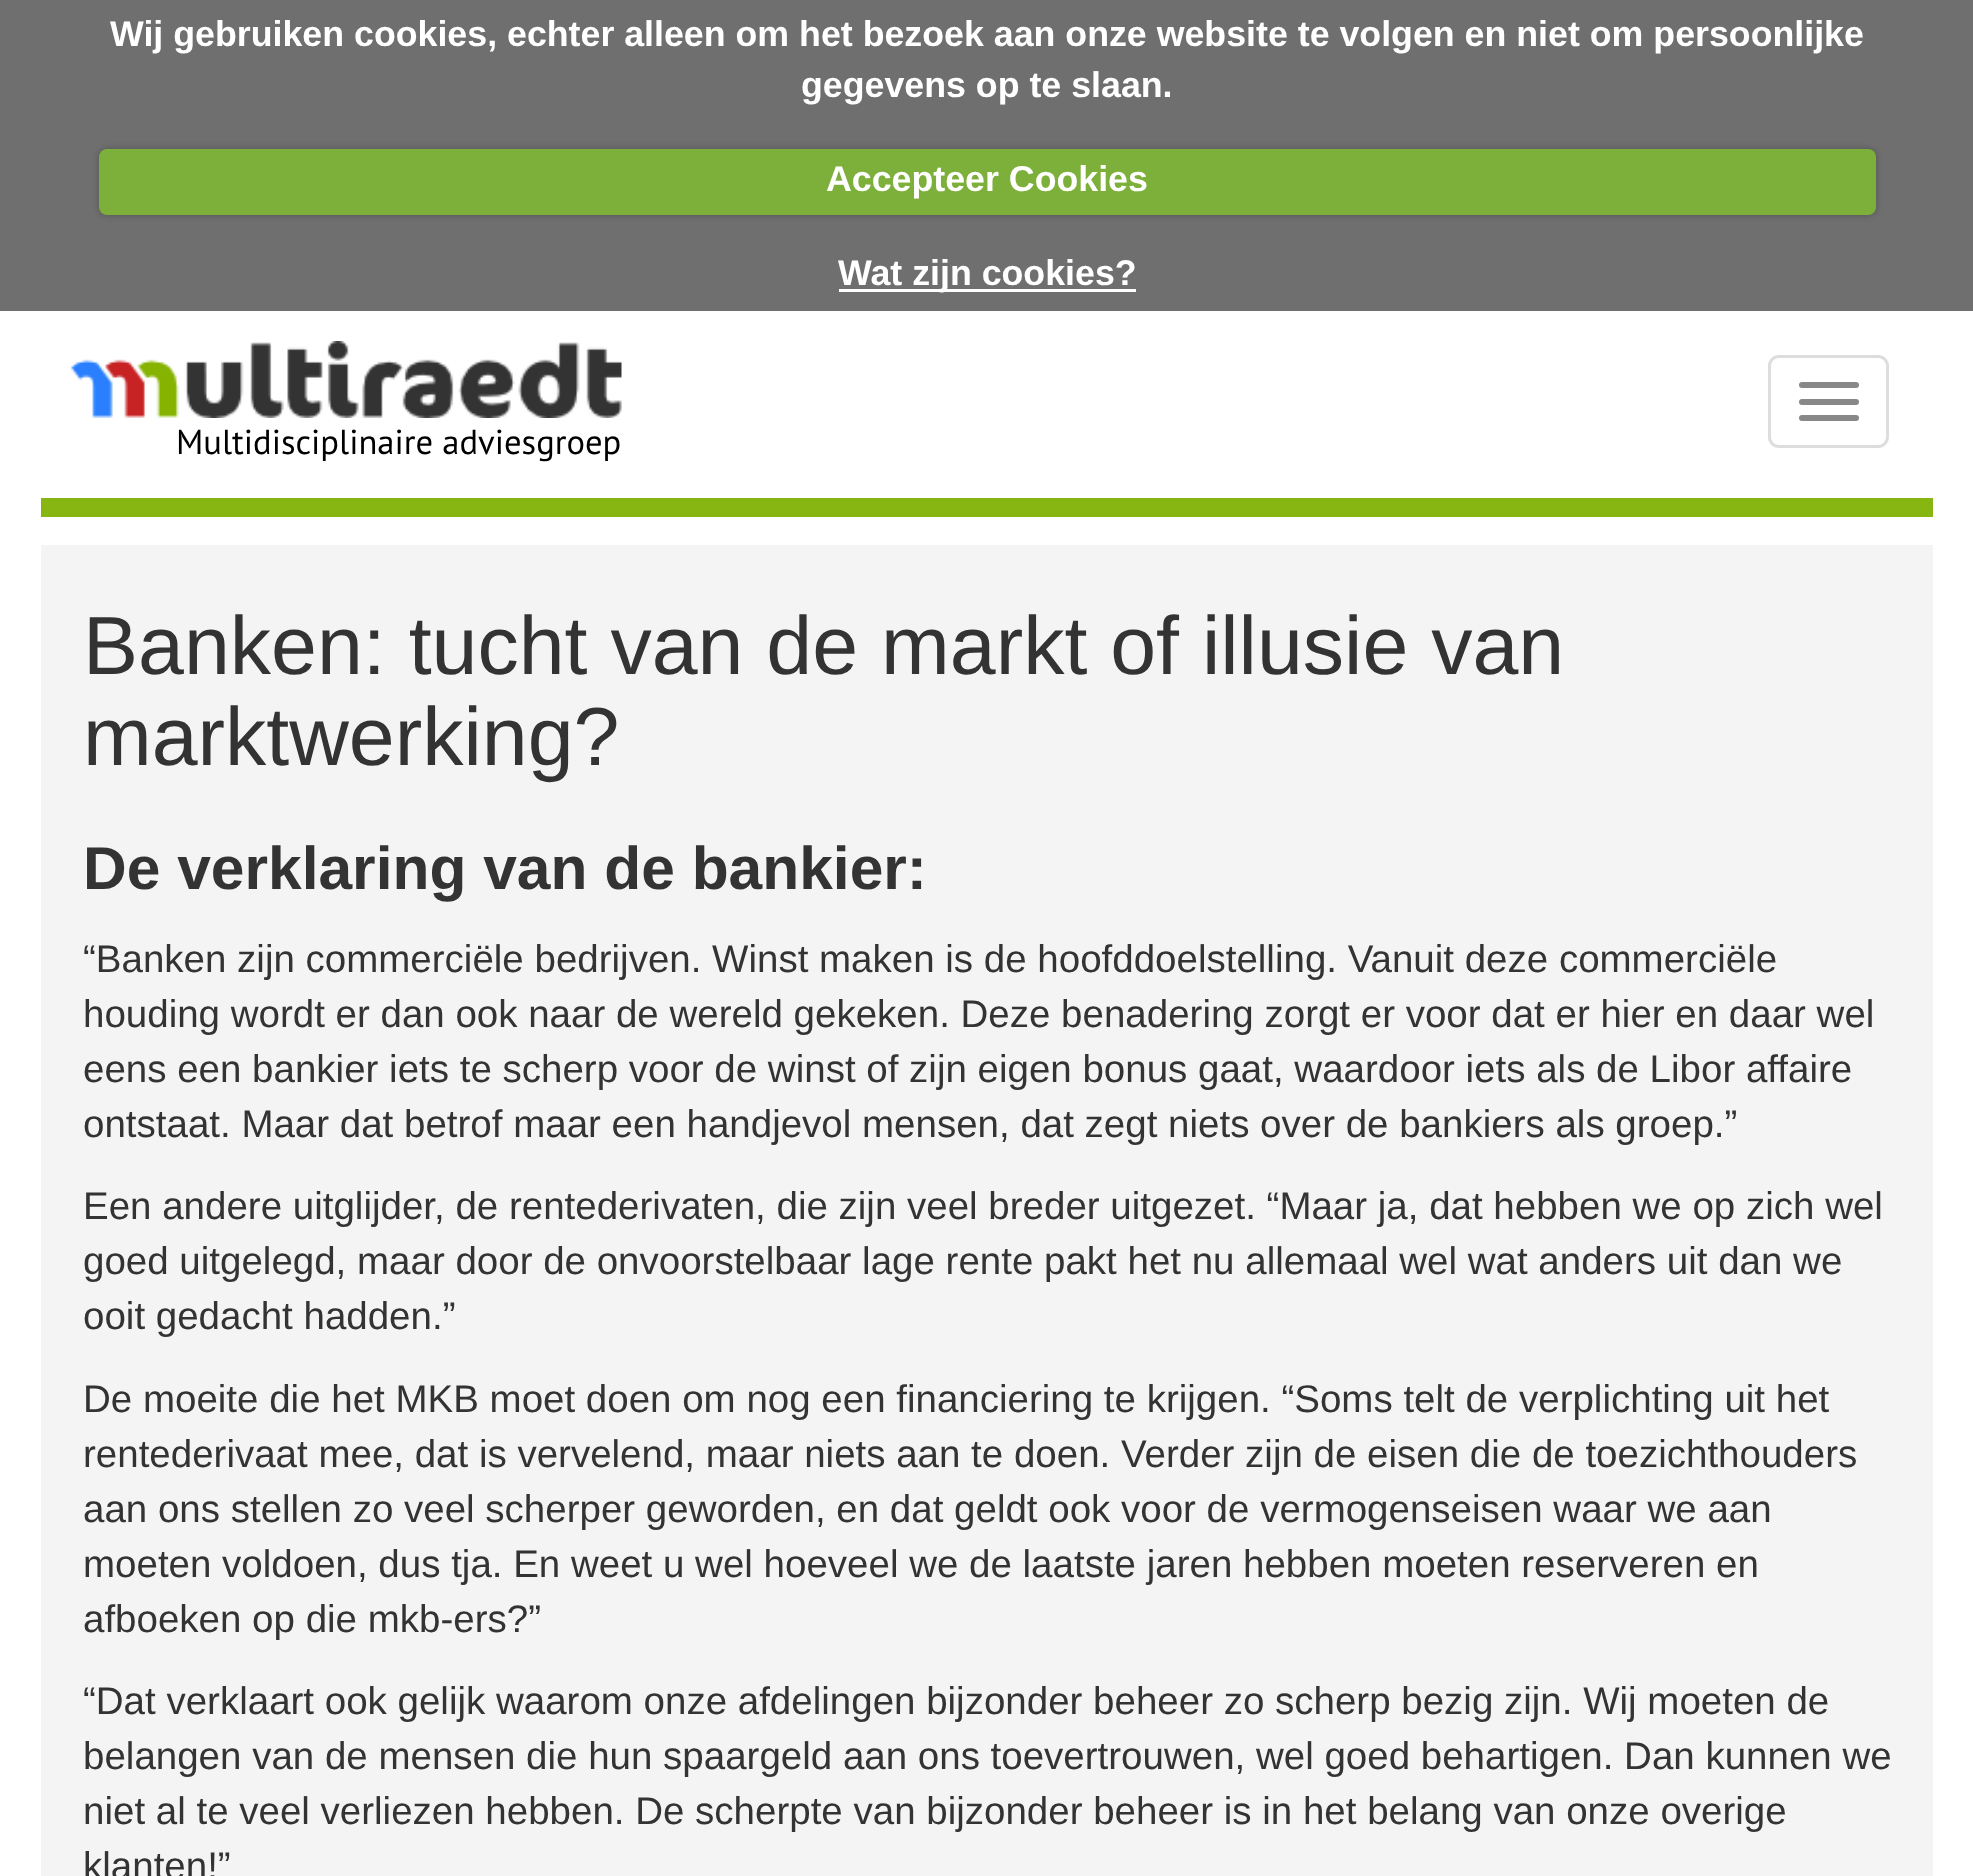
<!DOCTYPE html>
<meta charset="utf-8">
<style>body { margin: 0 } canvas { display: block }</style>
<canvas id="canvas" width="1973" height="1876"></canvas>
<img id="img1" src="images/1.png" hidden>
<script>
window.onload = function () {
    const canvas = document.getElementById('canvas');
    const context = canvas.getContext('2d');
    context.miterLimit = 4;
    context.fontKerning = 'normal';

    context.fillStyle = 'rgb(255, 255, 255)';
    context.fillRect(0, 0, 1973, 1876);
    context.fillStyle = 'rgb(111, 111, 111)';
    context.fillRect(0, 0, 1973, 311);
    context.fillStyle = 'rgba(0, 0, 0, 0.25)';
    context.filter = 'blur(3px)';
    context.beginPath();
    context.roundRect(99, 149, 1777, 66, 8);
    context.fill();
    context.filter = 'none';
    context.fillStyle = 'rgb(125, 175, 59)';
    context.beginPath();
    context.roundRect(99, 149, 1777, 66, 8);
    context.fill();
    context.fillStyle = 'rgb(255, 255, 255)';
    context.fillRect(839, 289, 297, 3);
    context.drawImage(document.getElementById('img1'), 71, 341, 551, 77);
    context.beginPath();
    context.roundRect(1769.5, 356.5, 118, 90, 9.5);
    context.strokeStyle = 'rgb(221, 221, 221)';
    context.lineWidth = 3;
    context.stroke();
    context.fillStyle = 'rgb(136, 136, 136)';
    context.beginPath();
    context.roundRect(1799, 382, 60, 6, 3);
    context.fill();
    context.beginPath();
    context.roundRect(1799, 399, 60, 6, 3);
    context.fill();
    context.beginPath();
    context.roundRect(1799, 415, 60, 6, 3);
    context.fill();
    context.fillStyle = 'rgb(135, 182, 18)';
    context.fillRect(41, 498, 1892, 19);
    context.fillStyle = 'rgb(244, 244, 244)';
    context.fillRect(41, 545, 1892, 1331);
    context.font = 'bold 35.75px Liberation Sans';
    context.fillStyle = 'rgb(255, 255, 255)';
    context.fillText('Wij gebruiken cookies, echter alleen om het bezoek aan onze website te volgen en niet om persoonlijke', 110, 46);
    context.fillText('gegevens op te slaan.', 801, 97);
    context.fillText('Accepteer Cookies', 826, 191);
    context.fillText('Wat zijn cookies?', 838, 285);
    context.font = '34.6px PT Sans';
    context.fillStyle = 'rgb(0, 0, 0)';
    context.fillText('Multidisciplinaire adviesgroep', 176, 454);
    context.font = '82.5px Liberation Sans';
    context.fillStyle = 'rgb(51, 51, 51)';
    context.fillText('Banken: tucht van de markt of illusie van', 83, 674);
    context.fillText('marktwerking?', 83, 765);
    context.font = 'bold 60.5px Liberation Sans';
    context.fillText('De verklaring van de bankier:', 83, 889);
    context.font = '38.5px Liberation Sans';
    context.fillText('“Banken zijn commerciële bedrijven. Winst maken is de hoofddoelstelling. Vanuit deze commerciële', 83, 972);
    context.fillText('houding wordt er dan ook naar de wereld gekeken. Deze benadering zorgt er voor dat er hier en daar wel', 83, 1027);
    context.fillText('eens een bankier iets te scherp voor de winst of zijn eigen bonus gaat, waardoor iets als de Libor affaire', 83, 1082);
    context.fillText('ontstaat. Maar dat betrof maar een handjevol mensen, dat zegt niets over de bankiers als groep.”', 83, 1137);
    context.fillText('Een andere uitglijder, de rentederivaten, die zijn veel breder uitgezet. “Maar ja, dat hebben we op zich wel', 83, 1219);
    context.fillText('goed uitgelegd, maar door de onvoorstelbaar lage rente pakt het nu allemaal wel wat anders uit dan we', 83, 1274);
    context.fillText('ooit gedacht hadden.”', 83, 1329);
    context.fillText('De moeite die het MKB moet doen om nog een financiering te krijgen. “Soms telt de verplichting uit het', 83, 1412);
    context.fillText('rentederivaat mee, dat is vervelend, maar niets aan te doen. Verder zijn de eisen die de toezichthouders', 83, 1467);
    context.fillText('aan ons stellen zo veel scherper geworden, en dat geldt ook voor de vermogenseisen waar we aan', 83, 1522);
    context.fillText('moeten voldoen, dus tja. En weet u wel hoeveel we de laatste jaren hebben moeten reserveren en', 83, 1577);
    context.fillText('afboeken op die mkb-ers?”', 83, 1632);
    context.fillText('“Dat verklaart ook gelijk waarom onze afdelingen bijzonder beheer zo scherp bezig zijn. Wij moeten de', 83, 1714);
    context.fillText('belangen van de mensen die hun spaargeld aan ons toevertrouwen, wel goed behartigen. Dan kunnen we', 83, 1769);
    context.fillText('niet al te veel verliezen hebben. De scherpte van bijzonder beheer is in het belang van onze overige', 83, 1824);
    context.fillText('klanten!”', 83, 1879);
};
</script>
